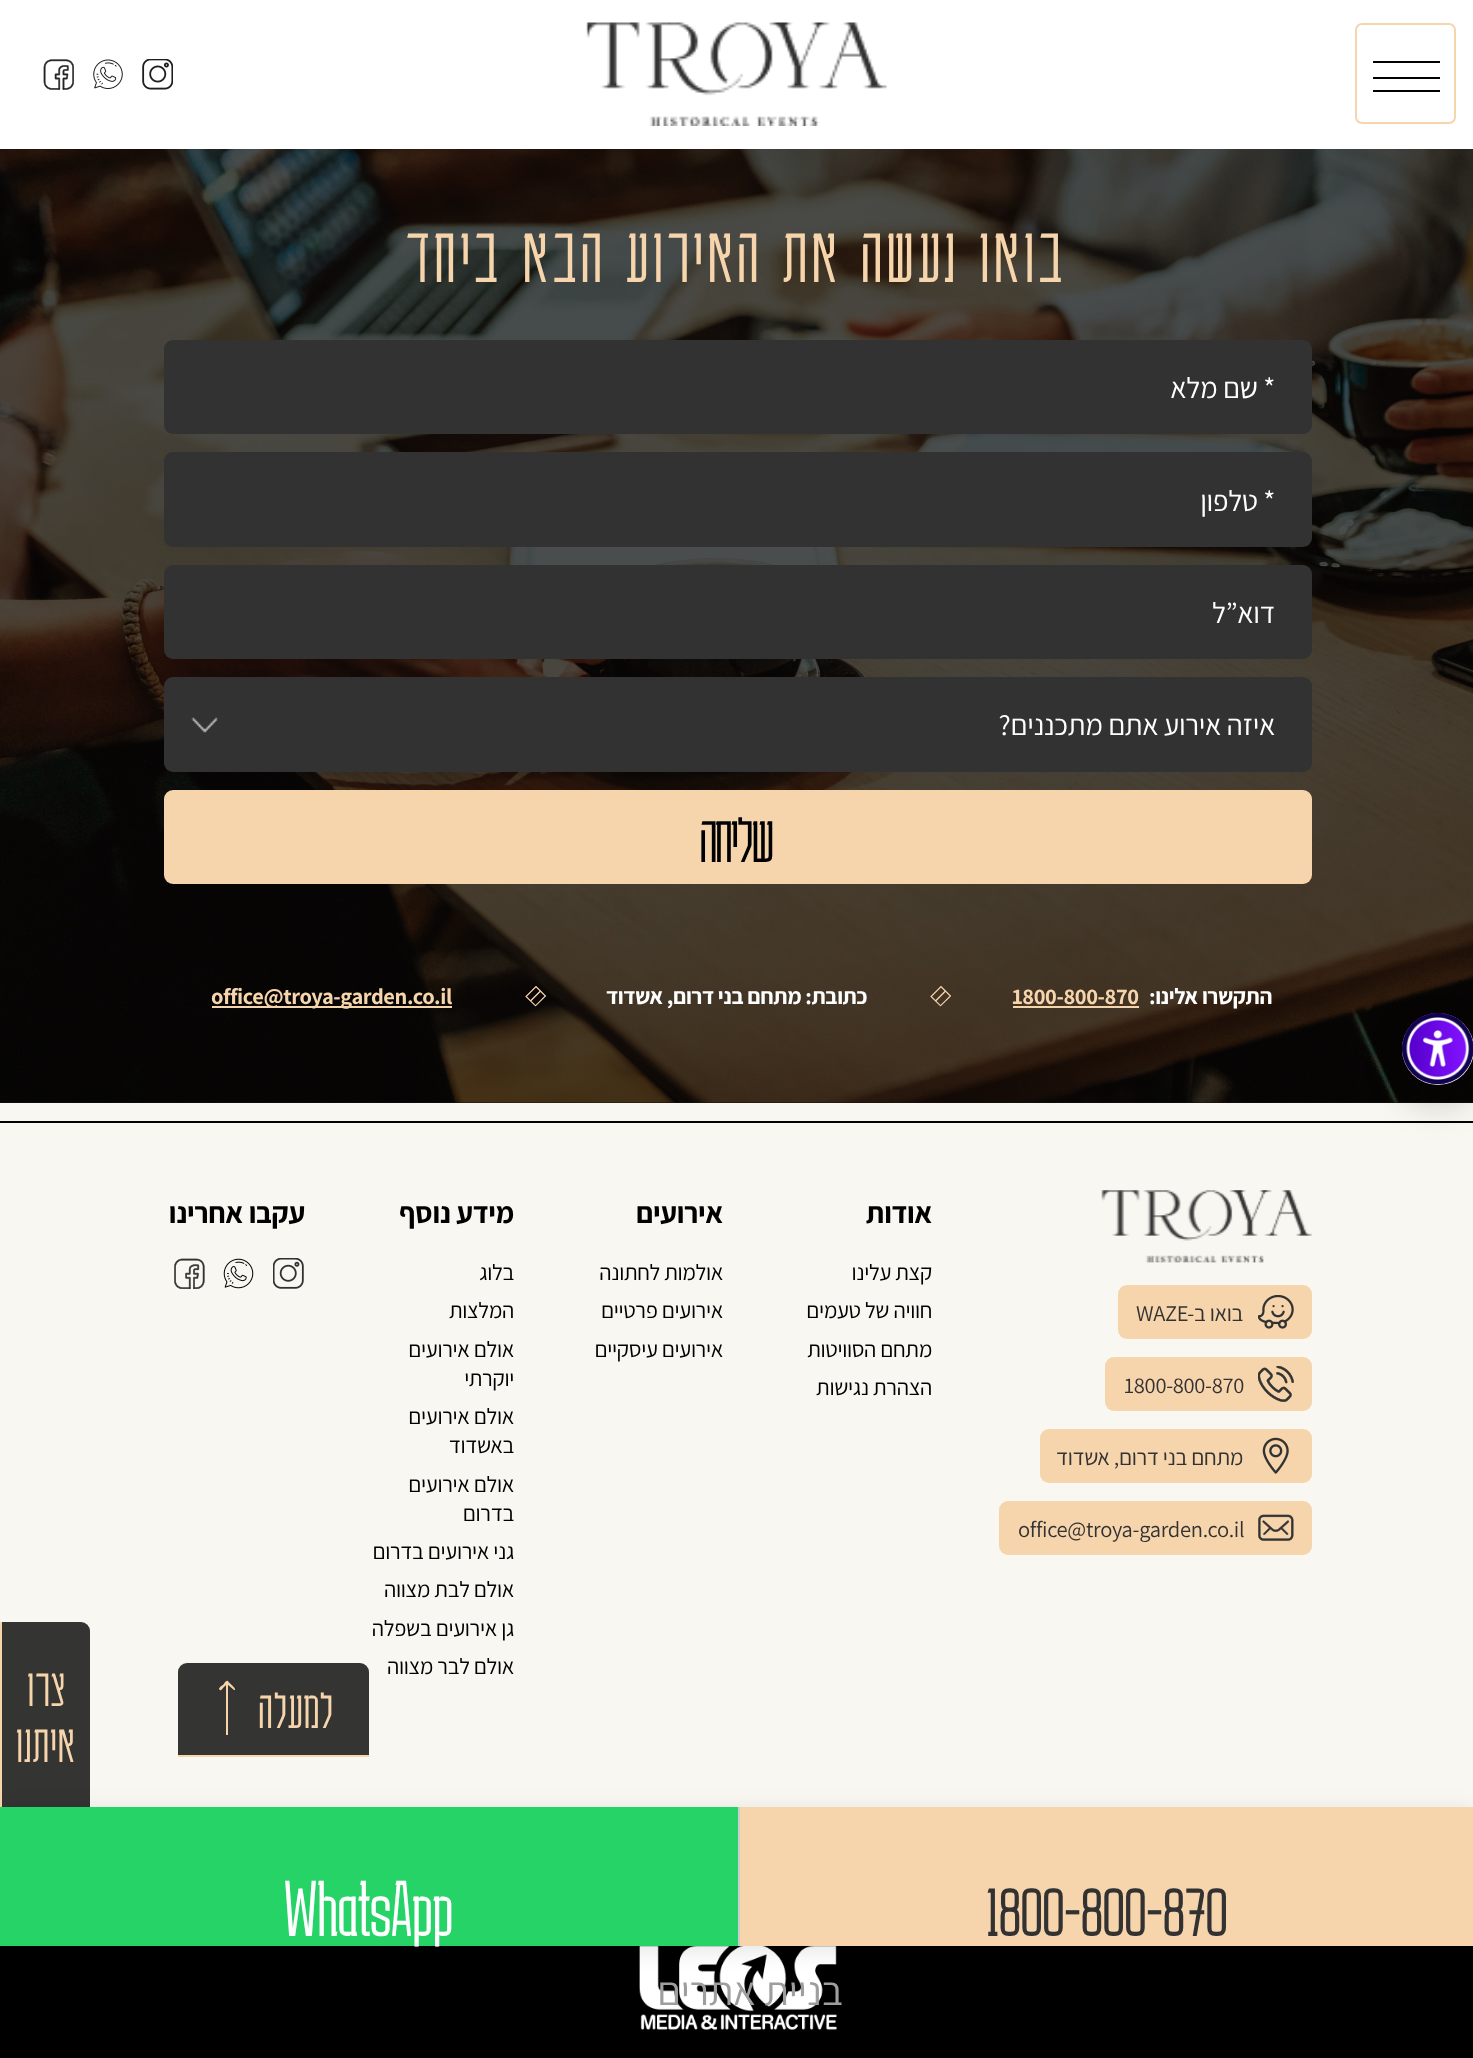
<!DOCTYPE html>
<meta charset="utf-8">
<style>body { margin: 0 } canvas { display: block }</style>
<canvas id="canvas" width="1473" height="2058"></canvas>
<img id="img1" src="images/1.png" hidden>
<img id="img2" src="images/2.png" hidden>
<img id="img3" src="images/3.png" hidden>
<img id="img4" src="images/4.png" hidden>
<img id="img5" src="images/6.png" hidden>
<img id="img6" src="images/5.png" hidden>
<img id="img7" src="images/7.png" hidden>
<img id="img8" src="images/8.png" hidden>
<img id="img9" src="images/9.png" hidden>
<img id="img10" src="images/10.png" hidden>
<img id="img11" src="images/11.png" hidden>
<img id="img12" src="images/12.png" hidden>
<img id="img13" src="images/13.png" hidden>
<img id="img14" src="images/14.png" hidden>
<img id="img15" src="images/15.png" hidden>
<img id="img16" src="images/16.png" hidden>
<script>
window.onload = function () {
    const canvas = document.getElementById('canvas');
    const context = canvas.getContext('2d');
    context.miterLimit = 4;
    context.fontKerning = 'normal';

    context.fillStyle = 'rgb(249, 247, 242)';
    context.fillRect(0, 0, 1473, 2058);
    context.fillStyle = 'rgb(255, 255, 255)';
    context.fillRect(0, 0, 1473, 149);
    context.beginPath();
    context.roundRect(1356, 24, 99, 99, 6);
    context.strokeStyle = 'rgb(246, 212, 172)';
    context.lineWidth = 2;
    context.stroke();
    context.fillStyle = 'rgb(0, 0, 0)';
    context.fillRect(1373, 61, 67, 2);
    context.fillRect(1373, 77, 67, 2);
    context.fillRect(1373, 90, 67, 2);
    context.drawImage(document.getElementById('img1'), 586, 22, 301, 104);
    context.drawImage(document.getElementById('img2'), 142, 59, 31, 31);
    context.drawImage(document.getElementById('img3'), 93, 59, 30, 30);
    context.drawImage(document.getElementById('img4'), 43, 59, 31, 31);
    context.fillStyle = 'rgb(21, 21, 21)';
    context.fillRect(0, 1102, 1473, 1);
    context.drawImage(document.getElementById('img5'), 0, 149, 1473, 954);
    context.fillStyle = 'rgb(0, 0, 0)';
    context.fillRect(0, 1121, 1473, 2);
    context.fillStyle = 'rgba(0, 0, 0, 0.22)';
    context.filter = 'blur(18px)';
    context.beginPath();
    context.roundRect(1402, 1031, 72, 72, 36);
    context.fill();
    context.filter = 'none';
    context.fillStyle = 'rgb(255, 255, 255)';
    context.beginPath();
    context.arc(1438, 1049, 36, 0, 2 * Math.PI);
    context.fill();
    context.drawImage(document.getElementById('img6'), 1401, 1012, 72, 73);
    context.fillStyle = 'rgb(50, 50, 50)';
    context.beginPath();
    context.roundRect(164, 340, 1148, 94, 9);
    context.fill();
    context.beginPath();
    context.roundRect(164, 452, 1148, 95, 9);
    context.fill();
    context.beginPath();
    context.roundRect(164, 565, 1148, 94, 9);
    context.fill();
    context.beginPath();
    context.roundRect(164, 677, 1148, 95, 9);
    context.fill();
    context.drawImage(document.getElementById('img7'), 191, 717, 27, 16);
    context.fillStyle = 'rgb(246, 212, 172)';
    context.beginPath();
    context.roundRect(164, 790, 1148, 94, 9);
    context.fill();
    context.fillRect(1013, 1006, 126, 2);
    context.save();
    context.beginPath();
    context.moveTo(941, 985.5);
    context.lineTo(951.5, 996);
    context.lineTo(940.5, 1006.5);
    context.lineTo(930, 996.5);
    context.closePath();
    context.clip();
    context.beginPath();
    context.moveTo(935.5, 1001);
    context.lineTo(945.5, 991);
    context.lineTo(950.5, 996);
    context.lineTo(940.5, 1006);
    context.lineTo(931, 996.5);
    context.lineTo(941, 986.5);
    context.lineTo(945.5, 991);
    context.closePath();
    context.strokeStyle = 'rgb(247, 212, 172)';
    context.lineWidth = 1.4;
    context.stroke();
    context.restore();
    context.save();
    context.beginPath();
    context.moveTo(536, 985.5);
    context.lineTo(546.5, 996);
    context.lineTo(535.5, 1006.5);
    context.lineTo(525, 996.5);
    context.closePath();
    context.clip();
    context.beginPath();
    context.moveTo(530.5, 1001);
    context.lineTo(540.5, 991);
    context.lineTo(545.5, 996);
    context.lineTo(535.5, 1006);
    context.lineTo(526, 996.5);
    context.lineTo(536, 986.5);
    context.lineTo(540.5, 991);
    context.closePath();
    context.strokeStyle = 'rgb(247, 212, 172)';
    context.lineWidth = 1.4;
    context.stroke();
    context.restore();
    context.fillRect(212, 1006, 240, 2);
    context.drawImage(document.getElementById('img8'), 1101, 1190, 211, 73);
    context.beginPath();
    context.roundRect(1118, 1285, 194, 54, 9);
    context.fill();
    context.drawImage(document.getElementById('img9'), 1258, 1295, 36, 34);
    context.beginPath();
    context.roundRect(1105, 1357, 207, 54, 9);
    context.fill();
    context.drawImage(document.getElementById('img10'), 1258, 1366, 36, 36);
    context.beginPath();
    context.roundRect(1040, 1429, 272, 54, 9);
    context.fill();
    context.drawImage(document.getElementById('img11'), 1262, 1437, 27, 37);
    context.beginPath();
    context.roundRect(999, 1501, 313, 54, 9);
    context.fill();
    context.drawImage(document.getElementById('img12'), 1258, 1514, 36, 27);
    context.drawImage(document.getElementById('img13'), 273, 1258, 31, 31);
    context.drawImage(document.getElementById('img14'), 223, 1258, 31, 31);
    context.drawImage(document.getElementById('img15'), 174, 1258, 31, 31);
    context.fillStyle = 'rgb(52, 52, 51)';
    context.beginPath();
    context.roundRect(178, 1663, 191, 94, [9, 9, 0, 0]);
    context.fill();
    context.fillStyle = 'rgb(246, 212, 172)';
    context.fillRect(178, 1755, 191, 2);
    context.fillStyle = 'rgb(247, 212, 172)';
    context.beginPath();
    context.moveTo(228, 1681);
    context.bezierCurveTo(226, 1680, 224, 1684, 223, 1685);
    context.bezierCurveTo(222, 1685, 217, 1689, 220, 1690);
    context.bezierCurveTo(221, 1691, 222, 1689, 223, 1688);
    context.lineTo(227, 1684);
    context.lineTo(234, 1690);
    context.lineTo(235, 1690);
    context.bezierCurveTo(236, 1688, 229, 1683, 228, 1681);
    context.closePath();
    context.moveTo(228, 1735);
    context.lineTo(228, 1682);
    context.lineTo(226, 1682);
    context.lineTo(226, 1735);
    context.closePath();
    context.fill();
    context.fillStyle = 'rgb(0, 0, 0)';
    context.fillRect(0, 1946, 1473, 112);
    context.drawImage(document.getElementById('img16'), 639, 1946, 198, 84);
    context.fillStyle = 'rgb(52, 52, 51)';
    context.beginPath();
    context.roundRect(0, 1622, 90, 241, [0, 9, 9, 0]);
    context.fill();
    context.fillStyle = 'rgb(246, 212, 172)';
    context.fillRect(0, 1622, 2, 185);
    context.fillStyle = 'rgba(0, 0, 0, 0.1)';
    context.filter = 'blur(11px)';
    context.beginPath();
    context.rect(0, 1811, 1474, 140);
    context.fill();
    context.filter = 'none';
    context.fillStyle = 'rgb(246, 212, 172)';
    context.fillRect(740, 1807, 733, 139);
    context.fillStyle = 'rgb(204, 204, 204)';
    context.fillRect(738, 1807, 2, 139);
    context.fillStyle = 'rgb(37, 211, 102)';
    context.fillRect(0, 1807, 738, 139);
    context.letterSpacing = '5.05px';
    context.direction = 'rtl';
    context.font = '300 81px Karantina';
    context.fillStyle = 'rgb(246, 212, 172)';
    context.fillText('בואו נעשה את האירוע הבא ביחד', 1067, 282);
    context.letterSpacing = '-0.3px';
    context.font = '29.25px Assistant';
    context.fillStyle = 'rgb(255, 255, 255)';
    context.fillText('* שם מלא', 1275, 398);
    context.fillText('* טלפון', 1275, 511);
    context.fillText('דוא”ל', 1275, 623);
    context.fillText('איזה אירוע אתם מתכננים?', 1275, 735);
    context.letterSpacing = '-1.5px';
    context.font = '300 68px Karantina';
    context.fillStyle = 'rgb(0, 0, 0)';
    context.fillText('שליחה', 772, 862);
    context.letterSpacing = '-0.4px';
    context.font = 'bold 22.5px Assistant';
    context.fillStyle = 'rgb(255, 255, 255)';
    context.fillText('התקשרו אלינו:', 1272, 1004);
    context.direction = 'ltr';
    context.fillStyle = 'rgb(246, 212, 172)';
    context.fillText('1800-800-870', 1012, 1004);
    context.direction = 'rtl';
    context.fillStyle = 'rgb(255, 255, 255)';
    context.fillText('כתובת: מתחם בני דרום, אשדוד', 867, 1004);
    context.direction = 'ltr';
    context.fillStyle = 'rgb(246, 212, 172)';
    context.fillText('office@troya-garden.co.il', 211, 1004);
    context.letterSpacing = '-0.3px';
    context.direction = 'rtl';
    context.font = '22.5px Assistant';
    context.fillStyle = 'rgb(50, 50, 50)';
    context.fillText('בואו ב-', 1243, 1321);
    context.direction = 'ltr';
    context.fillText('WAZE', 1136, 1321);
    context.fillText('1800-800-870', 1124, 1393);
    context.direction = 'rtl';
    context.fillText('מתחם בני דרום, אשדוד', 1243, 1465);
    context.direction = 'ltr';
    context.fillText('office@troya-garden.co.il', 1018, 1537);
    context.direction = 'rtl';
    context.font = 'bold 29.25px Assistant';
    context.fillStyle = 'rgb(0, 0, 0)';
    context.fillText('אודות', 932, 1223);
    context.font = '22.5px Assistant';
    context.fillText('קצת עלינו', 932, 1280);
    context.fillText('חוויה של טעמים', 932, 1318);
    context.fillText('מתחם הסוויטות', 932, 1357);
    context.fillText('הצהרת נגישות', 932, 1395);
    context.font = 'bold 29.25px Assistant';
    context.fillText('אירועים', 723, 1223);
    context.font = '22.5px Assistant';
    context.fillText('אולמות לחתונה', 723, 1280);
    context.fillText('אירועים פרטיים', 723, 1318);
    context.fillText('אירועים עיסקיים', 723, 1357);
    context.font = 'bold 29.25px Assistant';
    context.fillText('מידע נוסף', 514, 1223);
    context.font = '22.5px Assistant';
    context.fillText('בלוג', 514, 1280);
    context.fillText('המלצות', 514, 1318);
    context.fillText('אולם אירועים', 514, 1357);
    context.fillText('יוקרתי', 514, 1386);
    context.fillText('אולם אירועים', 514, 1424);
    context.fillText('באשדוד', 514, 1453);
    context.fillText('אולם אירועים', 514, 1492);
    context.fillText('בדרום', 514, 1521);
    context.fillText('גני אירועים בדרום', 514, 1559);
    context.fillText('אולם לבת מצווה', 514, 1597);
    context.fillText('גן אירועים בשפלה', 514, 1636);
    context.fillText('אולם לבר מצווה', 514, 1674);
    context.font = 'bold 29.25px Assistant';
    context.fillText('עקבו אחרינו', 305, 1223);
    context.letterSpacing = '1.5px';
    context.font = '300 54px Karantina';
    context.fillStyle = 'rgb(246, 212, 172)';
    context.fillText('למעלה', 334, 1728);
    context.letterSpacing = '0px';
    context.font = '40.5px Assistant';
    context.fillStyle = 'rgb(158, 158, 158)';
    context.fillText('בניית אתרים', 843, 2005);
    context.letterSpacing = '1.5px';
    context.font = '300 54px Karantina';
    context.fillStyle = 'rgb(246, 212, 172)';
    context.fillText('צרו', 66, 1706);
    context.fillText('איתנו', 76, 1762);
    context.letterSpacing = '0px';
    context.direction = 'ltr';
    context.font = '300 79px Karantina';
    context.fillStyle = 'rgb(50, 50, 50)';
    context.fillText('1800-800-870', 986, 1936);
    context.fillStyle = 'rgb(255, 255, 255)';
    context.fillText('WhatsApp', 284, 1936);
};
</script>
